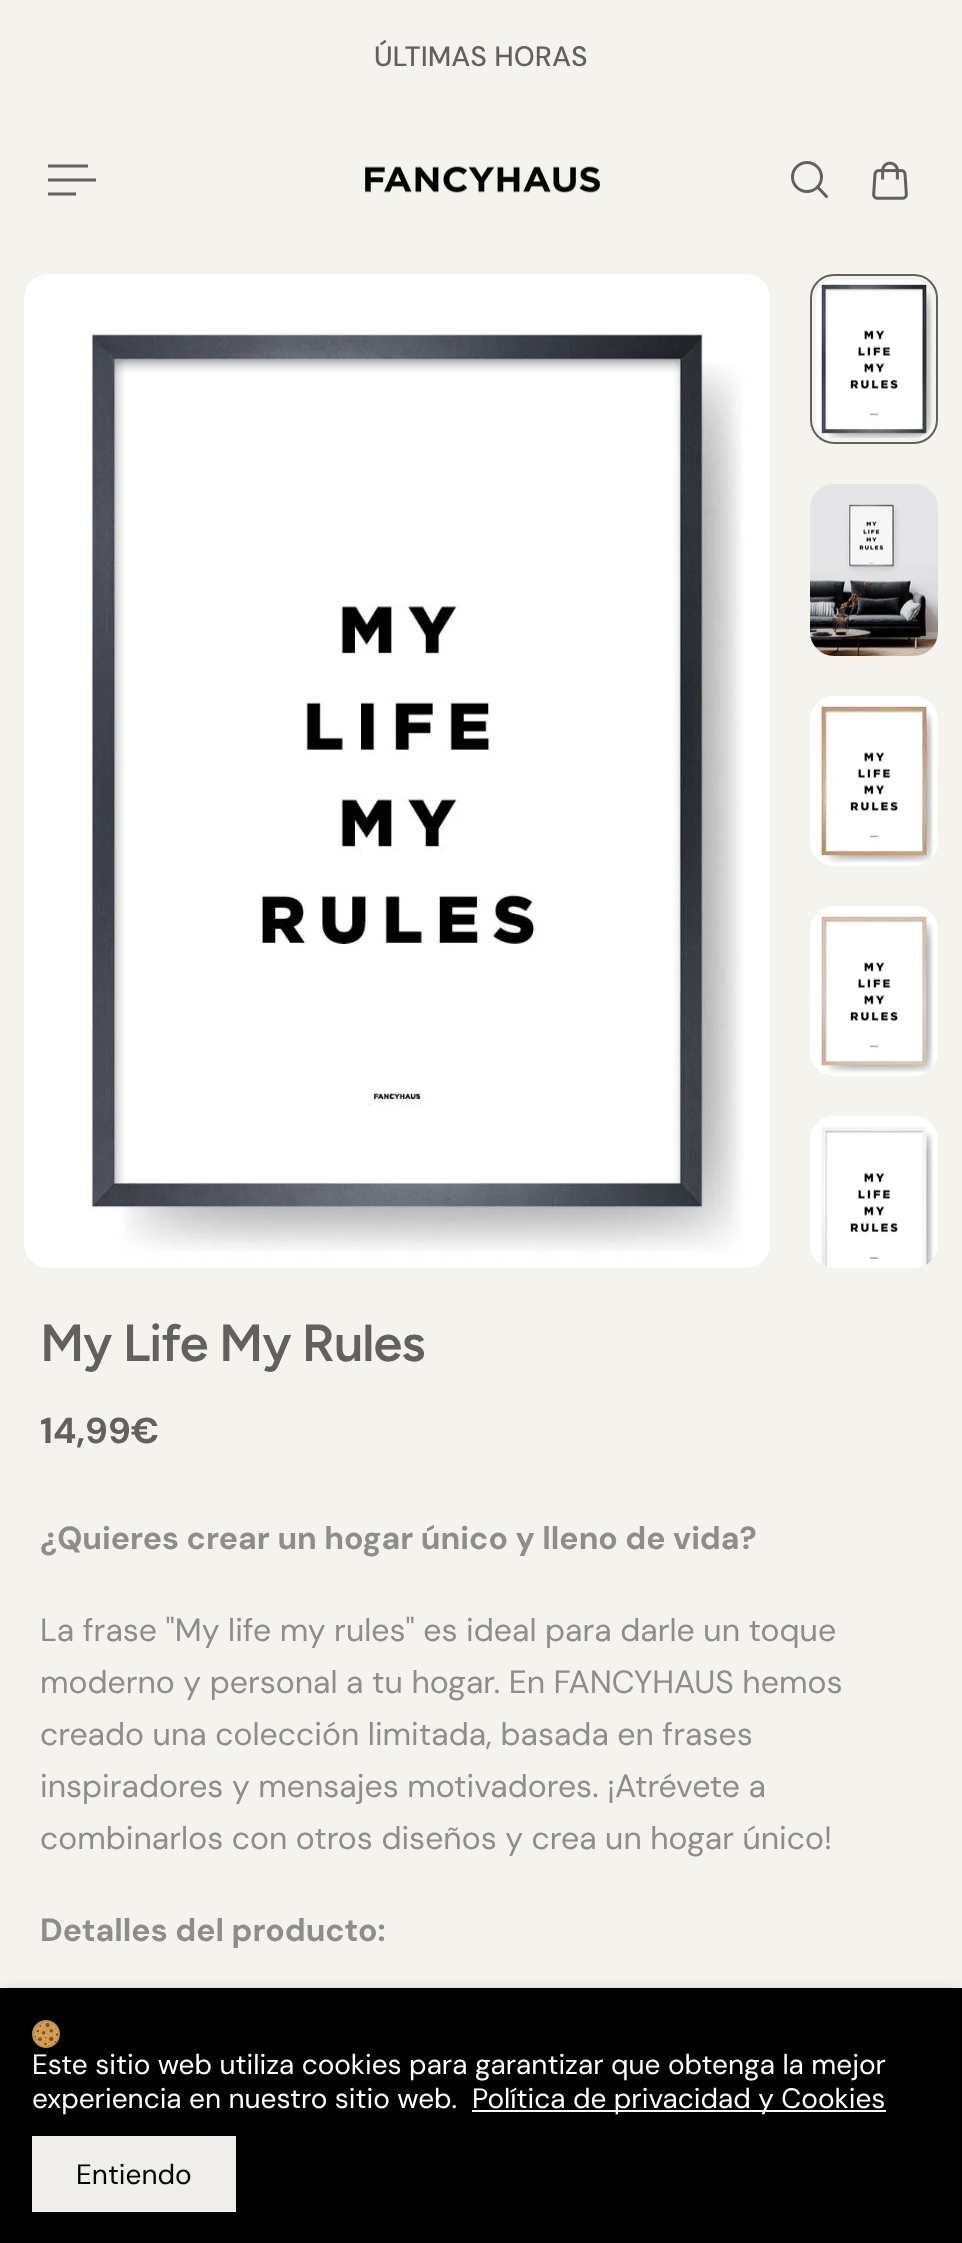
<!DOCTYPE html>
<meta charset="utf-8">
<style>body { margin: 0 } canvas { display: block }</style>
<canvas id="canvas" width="962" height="2243"></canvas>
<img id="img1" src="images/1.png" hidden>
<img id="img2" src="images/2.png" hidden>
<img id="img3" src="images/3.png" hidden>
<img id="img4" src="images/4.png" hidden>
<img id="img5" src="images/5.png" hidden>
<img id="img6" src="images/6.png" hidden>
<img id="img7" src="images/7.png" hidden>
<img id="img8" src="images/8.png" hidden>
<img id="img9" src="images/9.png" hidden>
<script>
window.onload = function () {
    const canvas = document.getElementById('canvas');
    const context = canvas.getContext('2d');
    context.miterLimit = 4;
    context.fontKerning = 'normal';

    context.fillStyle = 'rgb(244, 243, 238)';
    context.fillRect(0, 0, 962, 2243);
    context.beginPath();
    context.moveTo(48, 166);
    context.lineTo(88, 166);
    context.moveTo(48, 180);
    context.lineTo(96, 180);
    context.moveTo(48, 194);
    context.lineTo(76, 194);
    context.strokeStyle = 'rgb(99, 97, 93)';
    context.lineWidth = 3;
    context.stroke();
    context.drawImage(document.getElementById('img1'), 365, 166, 235, 27);
    context.beginPath();
    context.arc(807, 177, 14.5, 0, 2 * Math.PI);
    context.stroke();
    context.beginPath();
    context.moveTo(818, 187.5);
    context.lineTo(826.5, 196.5);
    context.lineCap = 'round';
    context.lineJoin = 'round';
    context.stroke();
    context.drawImage(document.getElementById('img2'), 872, 161, 36, 39);
    context.drawImage(document.getElementById('img3'), 24, 274, 746, 994);
    context.drawImage(document.getElementById('img4'), 810, 274, 128, 170);
    context.beginPath();
    context.roundRect(813, 277, 122, 164, 21);
    context.strokeStyle = 'rgb(244, 243, 238)';
    context.lineWidth = 6;
    context.lineJoin = 'miter';
    context.stroke();
    context.beginPath();
    context.roundRect(811, 275, 126, 168, 23);
    context.strokeStyle = 'rgb(99, 97, 93)';
    context.lineWidth = 2;
    context.stroke();
    context.drawImage(document.getElementById('img5'), 810, 484, 128, 172);
    context.drawImage(document.getElementById('img6'), 810, 696, 128, 170);
    context.drawImage(document.getElementById('img7'), 810, 906, 128, 170);
    context.drawImage(document.getElementById('img8'), 810, 1116, 128, 152);
    context.fillStyle = 'rgb(0, 0, 0)';
    context.fillRect(0, 1988, 962, 255);
    context.save();
    context.beginPath();
    context.moveTo(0, 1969);
    context.lineTo(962, 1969);
    context.lineTo(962, 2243);
    context.lineTo(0, 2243);
    context.closePath();
    context.moveTo(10, 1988);
    context.lineTo(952, 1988);
    context.bezierCurveTo(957.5, 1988, 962, 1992.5, 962, 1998);
    context.lineTo(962, 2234);
    context.bezierCurveTo(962, 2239.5, 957.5, 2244, 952, 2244);
    context.lineTo(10, 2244);
    context.bezierCurveTo(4.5, 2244, 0, 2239.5, 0, 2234);
    context.lineTo(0, 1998);
    context.bezierCurveTo(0, 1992.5, 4.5, 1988, 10, 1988);
    context.closePath();
    context.clip('evenodd');
    context.fillStyle = 'rgba(0, 0, 0, 0.12)';
    context.filter = 'blur(6px)';
    context.beginPath();
    context.roundRect(0, 1988, 962, 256, 10);
    context.fill();
    context.filter = 'none';
    context.restore();
    context.drawImage(document.getElementById('img9'), 32, 2020, 28, 28);
    context.fillStyle = 'rgb(255, 255, 255)';
    context.fillRect(472, 2110, 414, 2);
    context.fillStyle = 'rgb(239, 238, 235)';
    context.fillRect(32, 2136, 204, 76);
    context.font = '500 28px DM Sans';
    context.fillStyle = 'rgb(99, 97, 93)';
    context.fillText('ÚLTIMAS HORAS', 374, 66);
    context.letterSpacing = '-1px';
    context.font = '600 52px Figtree';
    context.fillText('My Life My Rules', 40, 1361);
    context.letterSpacing = '0px';
    context.font = 'bold 36px DM Sans';
    context.fillText('14,99€', 40, 1443);
    context.font = 'bold 32px "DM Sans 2"';
    context.fillStyle = 'rgb(143, 141, 137)';
    context.fillText('¿Quieres crear un hogar único y lleno de vida?', 40, 1549);
    context.font = '32px DM Sans';
    context.fillText('La frase "My life my rules" es ideal para darle un toque', 40, 1641);
    context.fillText('moderno y personal a tu hogar. En FANCYHAUS hemos', 40, 1693);
    context.fillText('creado una colección limitada, basada en frases', 40, 1745);
    context.fillText('inspiradores y mensajes motivadores. ¡Atrévete a', 40, 1797);
    context.fillText('combinarlos con otros diseños y crea un hogar único!', 40, 1849);
    context.font = 'bold 32px "DM Sans 2"';
    context.fillText('Detalles del producto:', 40, 1941);
    context.font = '28px "DM Sans 2"';
    context.fillStyle = 'rgb(255, 255, 255)';
    context.fillText('Este sitio web utiliza cookies para garantizar que obtenga la mejor', 32, 2074);
    context.fillText('experiencia en nuestro sitio web.', 32, 2108);
    context.fillText('Política de privacidad y Cookies', 472, 2108);
    context.fillStyle = 'rgb(0, 0, 0)';
    context.fillText('Entiendo', 76, 2184);
};
</script>
